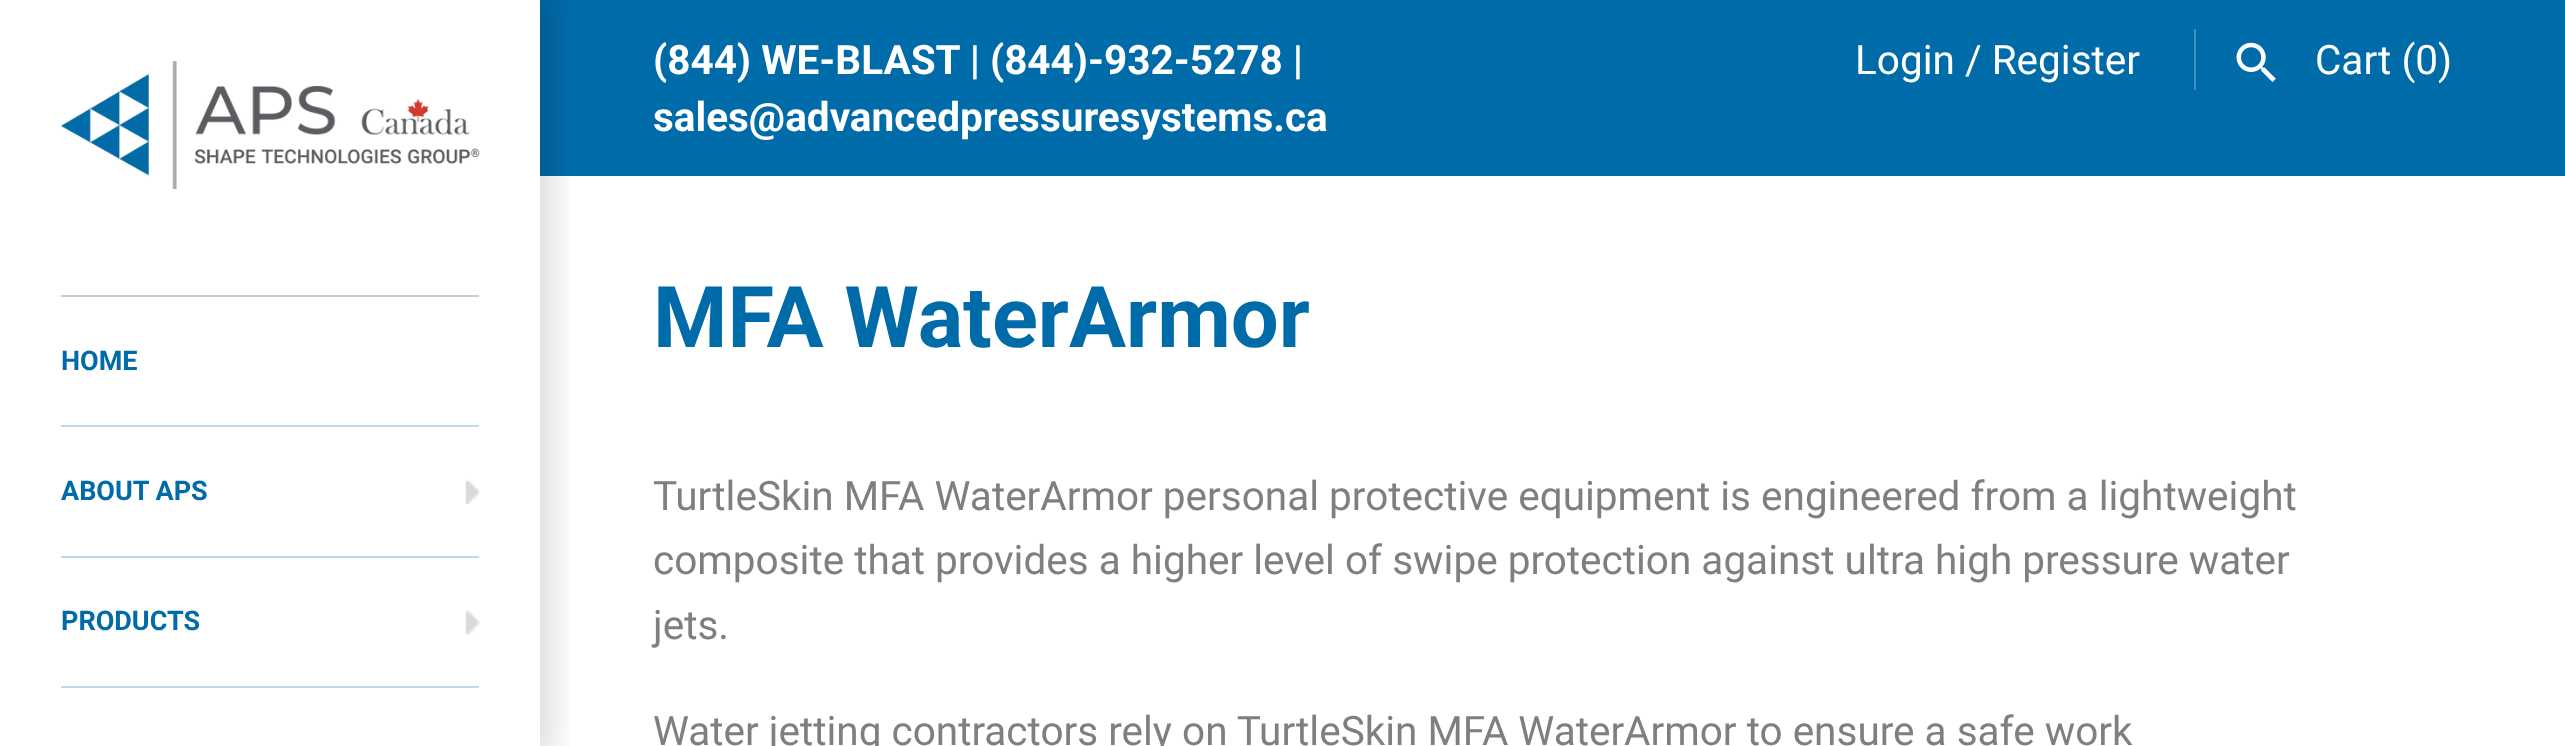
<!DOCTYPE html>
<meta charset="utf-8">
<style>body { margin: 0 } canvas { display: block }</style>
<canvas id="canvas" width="2565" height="746"></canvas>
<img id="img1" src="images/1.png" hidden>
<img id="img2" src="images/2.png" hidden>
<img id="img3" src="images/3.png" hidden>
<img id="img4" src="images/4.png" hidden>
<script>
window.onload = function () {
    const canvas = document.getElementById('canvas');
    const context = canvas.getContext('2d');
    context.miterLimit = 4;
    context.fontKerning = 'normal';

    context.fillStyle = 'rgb(255, 255, 255)';
    context.fillRect(0, 0, 2565, 746);
    context.fillStyle = 'rgb(0, 107, 169)';
    context.fillRect(540, 0, 2025, 176);
    context.fillStyle = 'rgb(64, 144, 191)';
    context.fillRect(2194, 29, 2, 61);
    context.drawImage(document.getElementById('img1'), 2236, 42, 40, 40);
    context.save();
    context.beginPath();
    context.rect(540, 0, 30, 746);
    context.clip();
    context.fillStyle = 'rgba(0, 0, 0, 0.15)';
    context.filter = 'blur(17px)';
    context.beginPath();
    context.rect(-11, -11, 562, 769);
    context.fill();
    context.filter = 'none';
    context.restore();
    context.drawImage(document.getElementById('img2'), 61, 61, 419, 128);
    context.fillStyle = 'rgb(204, 204, 204)';
    context.fillRect(61, 295, 418, 2);
    context.fillStyle = 'rgb(191, 218, 234)';
    context.fillRect(61, 425, 418, 2);
    context.drawImage(document.getElementById('img3'), 465, 479, 15, 25);
    context.fillRect(61, 556, 418, 2);
    context.drawImage(document.getElementById('img4'), 465, 610, 15, 25);
    context.fillRect(61, 686, 418, 2);
    context.font = 'bold 40.5px Roboto';
    context.fillStyle = 'rgb(255, 255, 255)';
    context.fillText('(844) WE-BLAST | (844)-932-5278 |', 653, 74);
    context.fillText('sales@advancedpressuresystems.ca', 653, 131);
    context.font = '40.5px Roboto';
    context.fillText('Login / Register', 1855, 74);
    context.fillText('Cart (0)', 2315, 74);
    context.font = 'bold 27px Roboto';
    context.fillStyle = 'rgb(0, 107, 169)';
    context.fillText('HOME', 61, 370);
    context.fillText('ABOUT APS', 61, 500);
    context.fillText('PRODUCTS', 61, 630);
    context.font = 'bold 85px Roboto';
    context.fillText('MFA WaterArmor', 653, 347);
    context.font = '40.5px Roboto';
    context.fillStyle = 'rgb(127, 127, 127)';
    context.fillText('TurtleSkin MFA WaterArmor personal protective equipment is engineered from a lightweight', 653, 510);
    context.fillText('composite that provides a higher level of swipe protection against ultra high pressure water', 653, 574);
    context.fillText('jets.', 653, 639);
    context.fillText('Water jetting contractors rely on TurtleSkin MFA WaterArmor to ensure a safe work', 653, 745);
};
</script>
